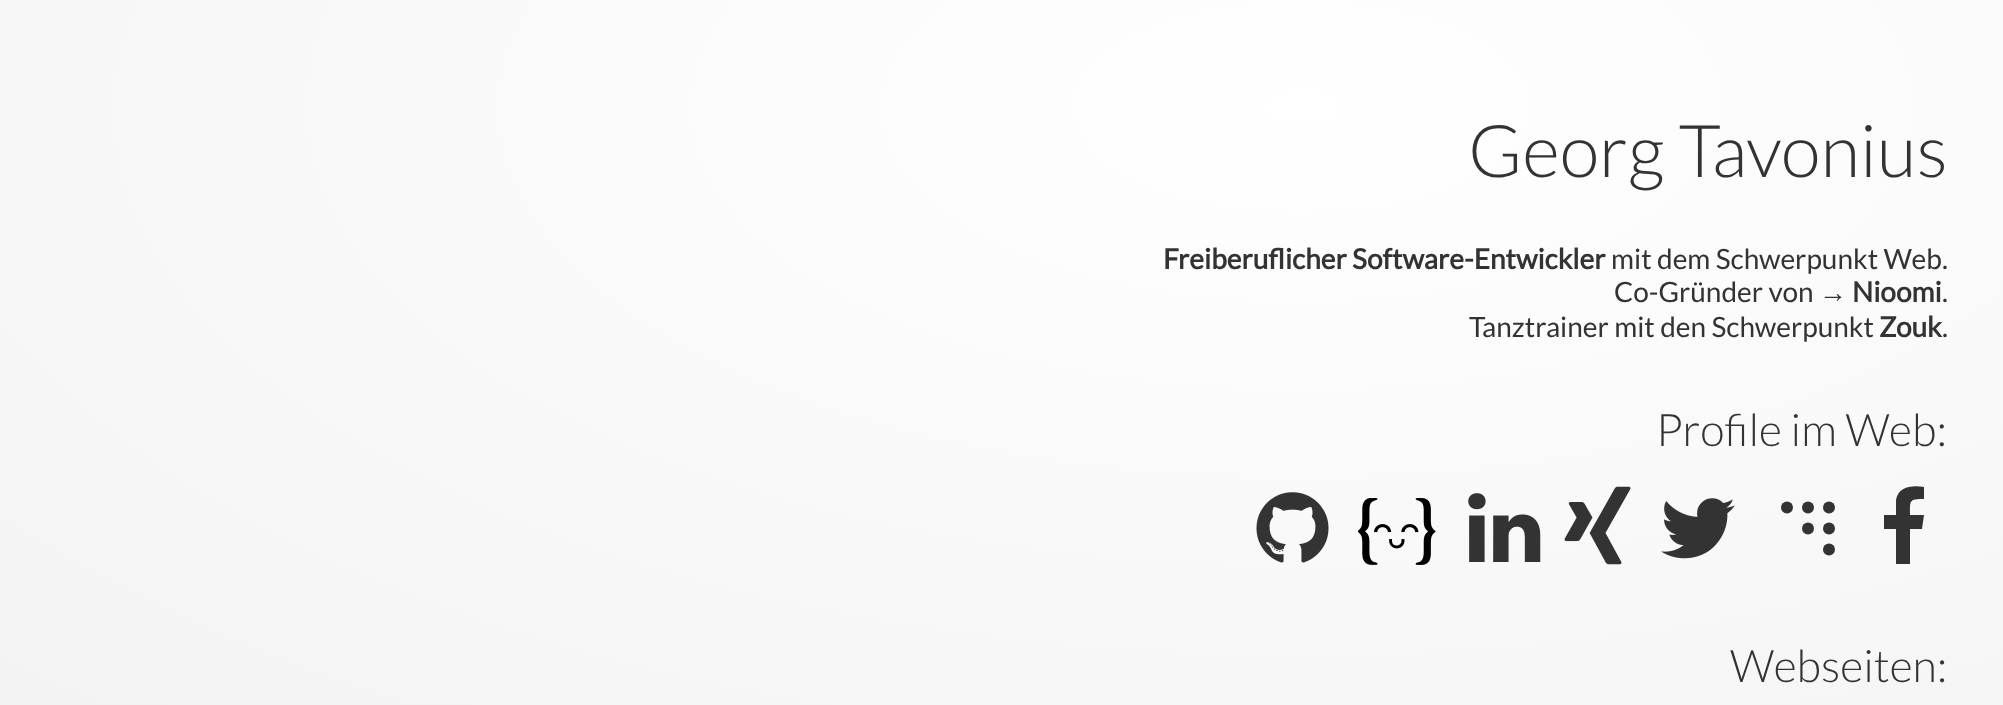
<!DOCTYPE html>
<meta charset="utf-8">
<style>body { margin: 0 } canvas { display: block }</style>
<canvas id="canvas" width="2003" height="705"></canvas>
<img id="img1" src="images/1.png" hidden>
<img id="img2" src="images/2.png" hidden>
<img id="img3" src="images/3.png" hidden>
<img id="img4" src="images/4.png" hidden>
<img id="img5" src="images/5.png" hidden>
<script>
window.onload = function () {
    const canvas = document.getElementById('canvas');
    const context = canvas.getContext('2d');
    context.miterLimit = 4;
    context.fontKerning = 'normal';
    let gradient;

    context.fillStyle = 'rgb(255, 255, 255)';
    context.fillRect(0, 0, 2003, 705);
    gradient = context.createRadialGradient(1302, 230.25, 0, 1302, 230.25, 1842);
    gradient.addColorStop(0, 'rgb(255, 255, 255)');
    gradient.addColorStop(1, 'rgb(243, 243, 243)');
    context.fillStyle = gradient;
    context.beginPath();
    context.rect(0, 0, 2003, 705);
    context.save();
    context.clip();
    context.scale(1, 848 / 1842);
    context.fillRect(0, 0, 2003, 1532);
    context.restore();
    context.drawImage(document.getElementById('img1'), 1256, 492, 73, 71);
    context.drawImage(document.getElementById('img2'), 1358, 498, 78, 67);
    context.drawImage(document.getElementById('img3'), 1468, 493, 73, 69);
    context.drawImage(document.getElementById('img4'), 1564, 486, 67, 79);
    context.drawImage(document.getElementById('img5'), 1661, 498, 74, 61);
    context.fillStyle = 'rgb(51, 51, 51)';
    context.beginPath();
    context.arc(1787, 507.5, 6, 0, 2 * Math.PI);
    context.fill();
    context.beginPath();
    context.arc(1808, 507.5, 6, 0, 2 * Math.PI);
    context.fill();
    context.beginPath();
    context.arc(1829, 507.5, 6, 0, 2 * Math.PI);
    context.fill();
    context.beginPath();
    context.arc(1808, 528.5, 6, 0, 2 * Math.PI);
    context.fill();
    context.beginPath();
    context.arc(1829, 528.5, 6, 0, 2 * Math.PI);
    context.fill();
    context.beginPath();
    context.arc(1829, 549.5, 6, 0, 2 * Math.PI);
    context.fill();
    context.beginPath();
    context.moveTo(1924, 487);
    context.lineTo(1924, 499);
    context.bezierCurveTo(1909, 499, 1910, 500, 1910, 515);
    context.lineTo(1924, 515);
    context.lineTo(1922, 529);
    context.lineTo(1910, 529);
    context.lineTo(1910, 564);
    context.lineTo(1896, 564);
    context.lineTo(1896, 529);
    context.lineTo(1884, 529);
    context.lineTo(1884, 515);
    context.lineTo(1896, 515);
    context.lineTo(1896, 500);
    context.bezierCurveTo(1898, 486, 1913, 485, 1924, 487);
    context.closePath();
    context.fill();
    context.font = '300 72.75px Lato';
    context.fillText('Georg Tavonius', 1468, 177);
    context.font = 'bold 28px Lato';
    context.fillText('Freiberuflicher Software-Entwickler', 1163, 269);
    context.font = '28px Lato';
    context.fillText('mit dem Schwerpunkt Web.', 1611, 269);
    context.fillText('Co-Gründer von', 1614, 302);
    context.font = 'bold 28px Liberation Sans';
    context.fillText('→', 1819, 302);
    context.font = 'bold 28px Lato';
    context.fillText('Nioomi', 1852, 302);
    context.font = '28px Lato';
    context.fillText('.', 1942, 302);
    context.fillText('Tanztrainer mit den Schwerpunkt', 1469, 337);
    context.font = 'bold 28px Lato';
    context.fillText('Zouk', 1879, 337);
    context.font = '28px Lato';
    context.fillText('.', 1942, 337);
    context.font = '300 44.75px Lato';
    context.fillText('Profile im Web:', 1656, 446);
    context.fillText('Webseiten:', 1730, 682);
};
</script>
